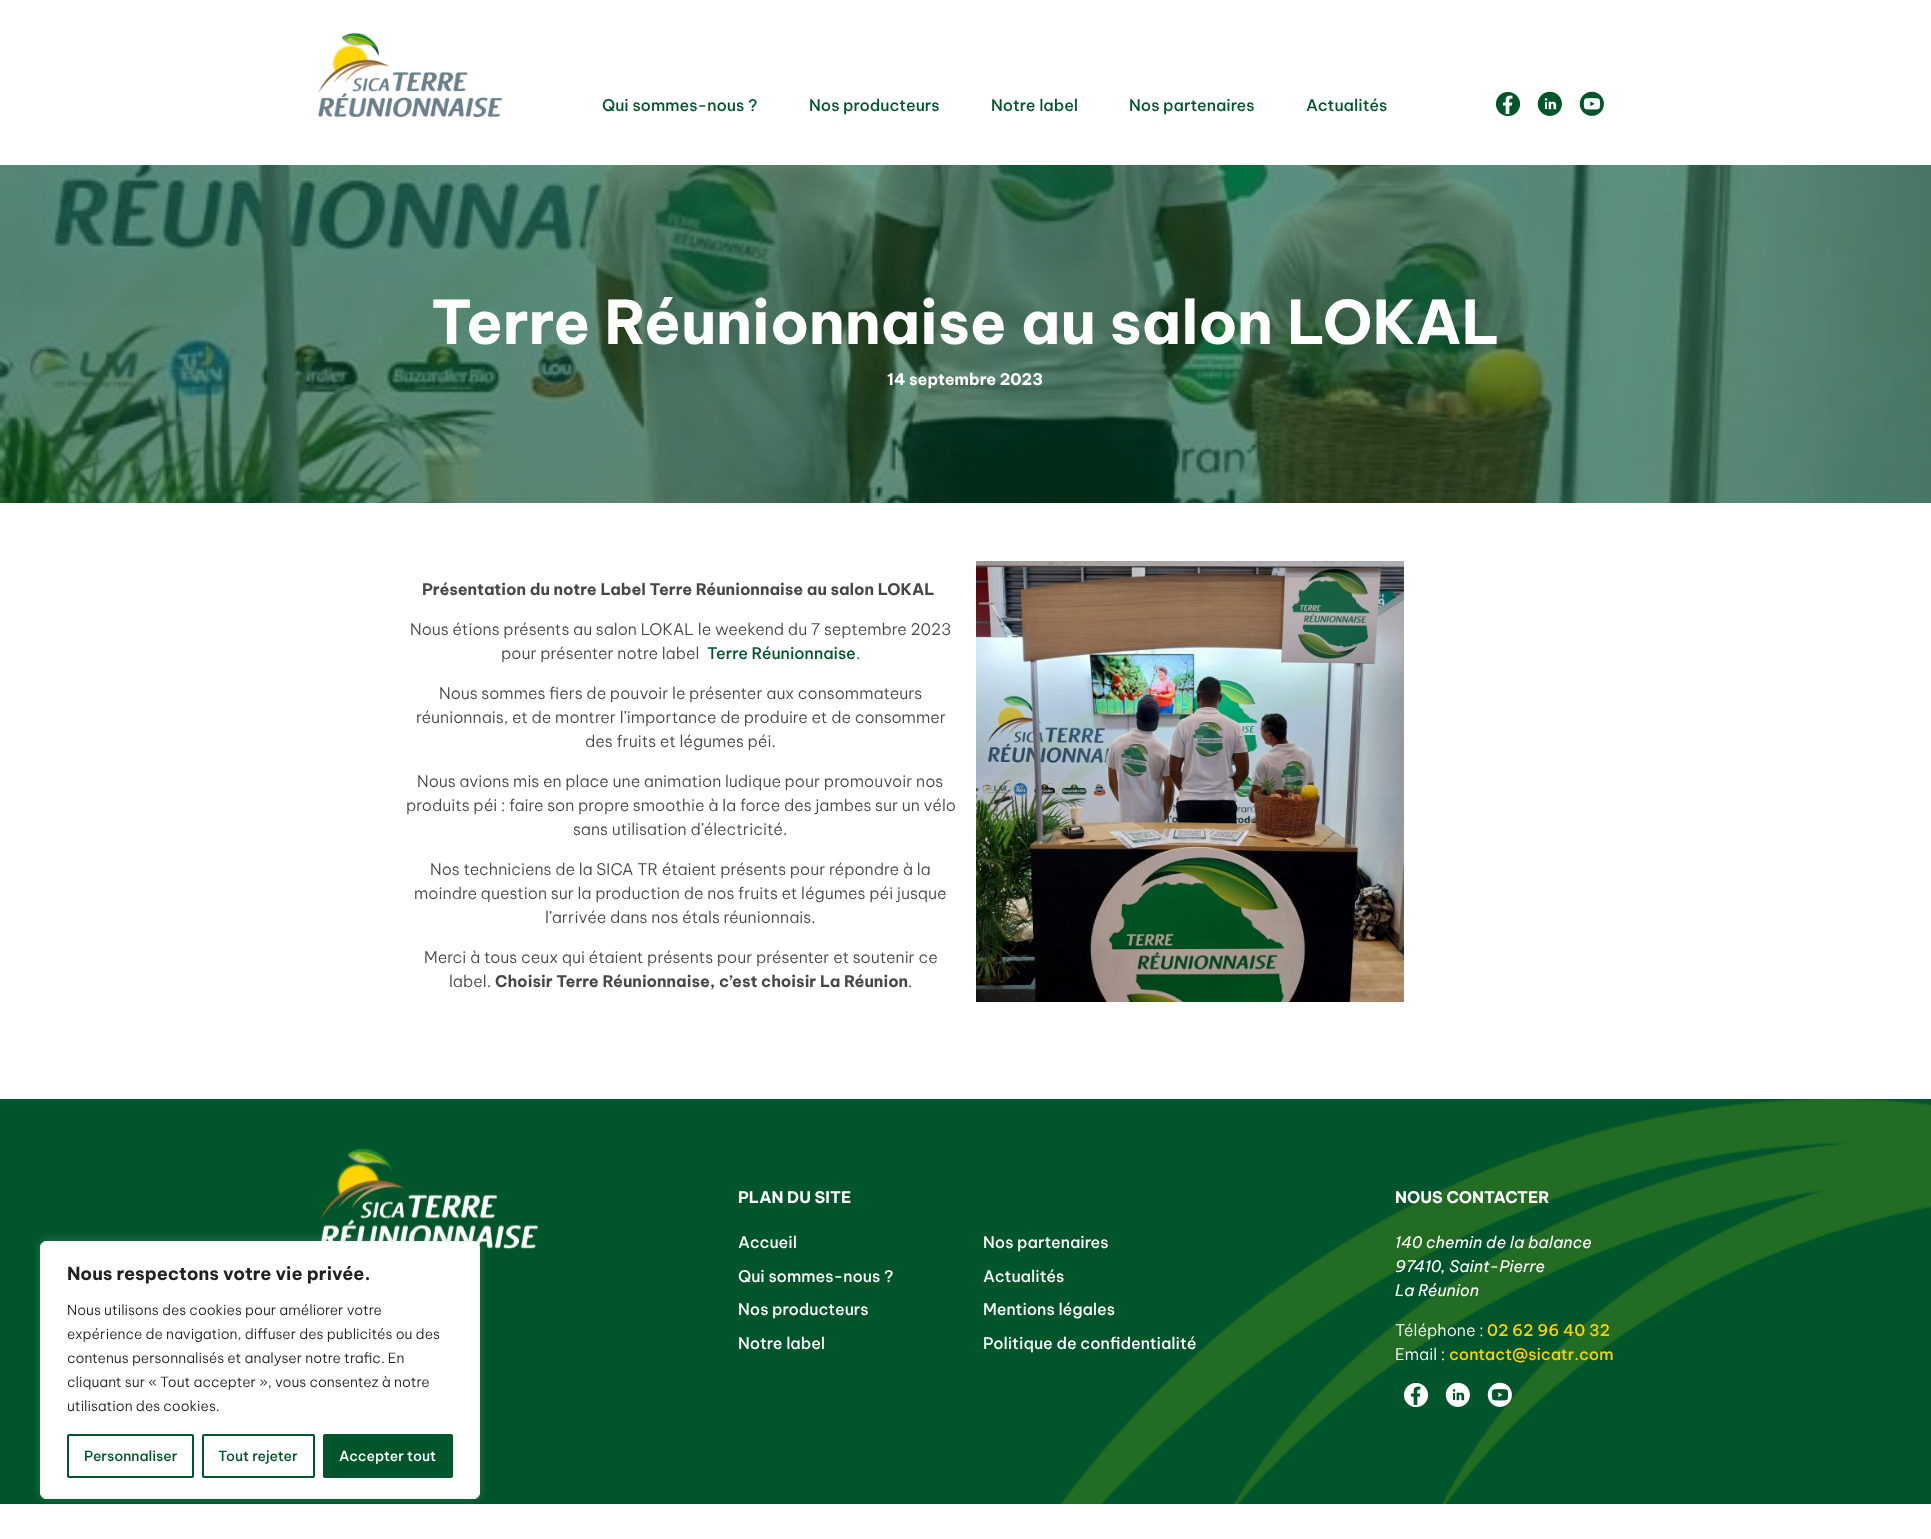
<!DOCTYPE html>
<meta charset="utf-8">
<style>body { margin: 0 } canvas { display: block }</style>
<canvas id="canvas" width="1931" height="1539"></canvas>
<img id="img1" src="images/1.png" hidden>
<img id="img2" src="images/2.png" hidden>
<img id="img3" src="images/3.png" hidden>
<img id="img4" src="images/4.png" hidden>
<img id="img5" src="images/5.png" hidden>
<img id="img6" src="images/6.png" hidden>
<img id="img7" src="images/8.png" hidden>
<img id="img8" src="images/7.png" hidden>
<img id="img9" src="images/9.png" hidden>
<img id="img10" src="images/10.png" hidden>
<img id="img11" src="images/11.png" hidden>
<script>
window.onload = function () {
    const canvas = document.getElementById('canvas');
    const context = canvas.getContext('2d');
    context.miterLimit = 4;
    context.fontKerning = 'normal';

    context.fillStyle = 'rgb(255, 255, 255)';
    context.fillRect(0, 0, 1931, 1539);
    context.drawImage(document.getElementById('img1'), 318, 32, 184, 85);
    context.drawImage(document.getElementById('img2'), 1495, 91, 26, 26);
    context.drawImage(document.getElementById('img3'), 1537, 91, 25, 25);
    context.drawImage(document.getElementById('img4'), 1579, 91, 25, 25);
    context.drawImage(document.getElementById('img5'), 0, 165, 1931, 338);
    context.drawImage(document.getElementById('img6'), 976, 561, 428, 441);
    context.fillStyle = 'rgb(0, 85, 42)';
    context.fillRect(0, 1099, 1931, 405);
    context.drawImage(document.getElementById('img7'), 320, 1148, 218, 101);
    context.fillStyle = 'rgba(172, 171, 171, 0.3)';
    context.filter = 'blur(5px)';
    context.beginPath();
    context.roundRect(40, 1240, 440, 258, 6);
    context.fill();
    context.filter = 'none';
    context.fillStyle = 'rgb(255, 255, 255)';
    context.beginPath();
    context.roundRect(40.5, 1241.5, 439, 257, 5.5);
    context.fill();
    context.strokeStyle = 'rgb(244, 244, 244)';
    context.stroke();
    context.beginPath();
    context.roundRect(68, 1435, 125, 42, 1);
    context.strokeStyle = 'rgb(0, 85, 42)';
    context.lineWidth = 2;
    context.stroke();
    context.beginPath();
    context.roundRect(203, 1435, 111, 42, 1);
    context.stroke();
    context.fillStyle = 'rgb(0, 85, 42)';
    context.beginPath();
    context.roundRect(324, 1435, 128, 42, 1);
    context.fill();
    context.stroke();
    context.drawImage(document.getElementById('img8'), 1061, 1099, 870, 405);
    context.drawImage(document.getElementById('img9'), 1403, 1382, 26, 26);
    context.drawImage(document.getElementById('img10'), 1445, 1382, 25, 25);
    context.drawImage(document.getElementById('img11'), 1487, 1382, 25, 25);
    context.font = '500 16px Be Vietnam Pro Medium';
    context.fillText('Qui sommes-nous ?', 602, 111);
    context.fillText('Nos producteurs', 809, 111);
    context.fillText('Notre label', 991, 111);
    context.fillText('Nos partenaires', 1129, 111);
    context.fillText('Actualités', 1306, 111);
    context.font = 'bold 60px Be Vietnam Pro';
    context.fillStyle = 'rgb(255, 255, 255)';
    context.fillText('Terre Réunionnaise au salon LOKAL', 431, 344);
    context.font = 'bold 16px Be Vietnam Pro';
    context.fillText('14 septembre 2023', 887, 385);
    context.fillStyle = 'rgb(71, 71, 71)';
    context.fillText('Présentation du notre Label Terre Réunionnaise au salon LOKAL', 422, 595);
    context.font = '300 16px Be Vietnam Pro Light';
    context.fillText('Nous étions présents au salon LOKAL le weekend du 7 septembre 2023', 410, 635);
    context.fillText('pour présenter notre label', 501, 659);
    context.font = '500 16px Be Vietnam Pro Medium';
    context.fillStyle = 'rgb(0, 85, 42)';
    context.fillText('Terre Réunionnaise', 707, 659);
    context.font = '300 16px Be Vietnam Pro Light';
    context.fillStyle = 'rgb(71, 71, 71)';
    context.fillText('.', 856, 659);
    context.fillText('Nous sommes fiers de pouvoir le présenter aux consommateurs', 439, 699);
    context.fillText('réunionnais, et de montrer l’importance de produire et de consommer', 416, 723);
    context.fillText('des fruits et légumes péi.', 585, 747);
    context.fillText('Nous avions mis en place une animation ludique pour promouvoir nos', 417, 787);
    context.fillText('produits péi : faire son propre smoothie à la force des jambes sur un vélo', 406, 811);
    context.fillText('sans utilisation d’électricité.', 573, 835);
    context.fillText('Nos techniciens de la SICA TR étaient présents pour répondre à la', 430, 875);
    context.fillText('moindre question sur la production de nos fruits et légumes péi jusque', 414, 899);
    context.fillText('l’arrivée dans nos étals réunionnais.', 545, 923);
    context.fillText('Merci à tous ceux qui étaient présents pour présenter et soutenir ce', 424, 963);
    context.fillText('label.', 449, 987);
    context.font = 'bold 16px Be Vietnam Pro';
    context.fillText('Choisir Terre Réunionnaise, c’est choisir La Réunion', 495, 987);
    context.font = '300 16px Be Vietnam Pro Light';
    context.fillText('.', 908, 987);
    context.font = 'bold 18px Be Vietnam Pro';
    context.fillStyle = 'rgb(33, 33, 33)';
    context.fillText('Nous respectons votre vie privée.', 67, 1280);
    context.font = '300 14px Be Vietnam Pro Light';
    context.fillText('Nous utilisons des cookies pour améliorer votre', 67, 1315);
    context.fillText('expérience de navigation, diffuser des publicités ou des', 67, 1339);
    context.fillText('contenus personnalisés et analyser notre trafic. En', 67, 1363);
    context.fillText('cliquant sur « Tout accepter », vous consentez à notre', 67, 1387);
    context.fillText('utilisation des cookies.', 67, 1411);
    context.font = '500 14px Be Vietnam Pro Medium';
    context.fillStyle = 'rgb(0, 85, 42)';
    context.fillText('Personnaliser', 84, 1461);
    context.fillText('Tout rejeter', 218, 1461);
    context.fillStyle = 'rgb(255, 255, 255)';
    context.fillText('Accepter tout', 339, 1461);
    context.font = 'bold 16px Be Vietnam Pro';
    context.fillText('PLAN DU SITE', 738, 1203);
    context.font = '500 16px Be Vietnam Pro Medium';
    context.fillText('Accueil', 738, 1248);
    context.fillText('Nos partenaires', 983, 1248);
    context.fillText('Qui sommes-nous ?', 738, 1282);
    context.fillText('Actualités', 983, 1282);
    context.fillText('Nos producteurs', 738, 1315);
    context.fillText('Mentions légales', 983, 1315);
    context.fillText('Notre label', 738, 1349);
    context.fillText('Politique de confidentialité', 983, 1349);
    context.font = 'bold 16px Be Vietnam Pro';
    context.fillText('NOUS CONTACTER', 1395, 1203);
    context.font = 'italic 16px Be Vietnam Pro';
    context.fillText('140 chemin de la balance', 1395, 1248);
    context.fillText('97410, Saint-Pierre', 1395, 1272);
    context.fillText('La Réunion', 1395, 1296);
    context.font = '300 16px Be Vietnam Pro Light';
    context.fillText('Téléphone :', 1395, 1336);
    context.font = '500 16px Be Vietnam Pro Medium';
    context.fillStyle = 'rgb(253, 210, 1)';
    context.fillText('02 62 96 40 32', 1487, 1336);
    context.font = '300 16px Be Vietnam Pro Light';
    context.fillStyle = 'rgb(255, 255, 255)';
    context.fillText('Email :', 1395, 1360);
    context.font = '500 16px Be Vietnam Pro Medium';
    context.fillStyle = 'rgb(253, 210, 1)';
    context.fillText('contact@sicatr.com', 1449, 1360);
};
</script>
